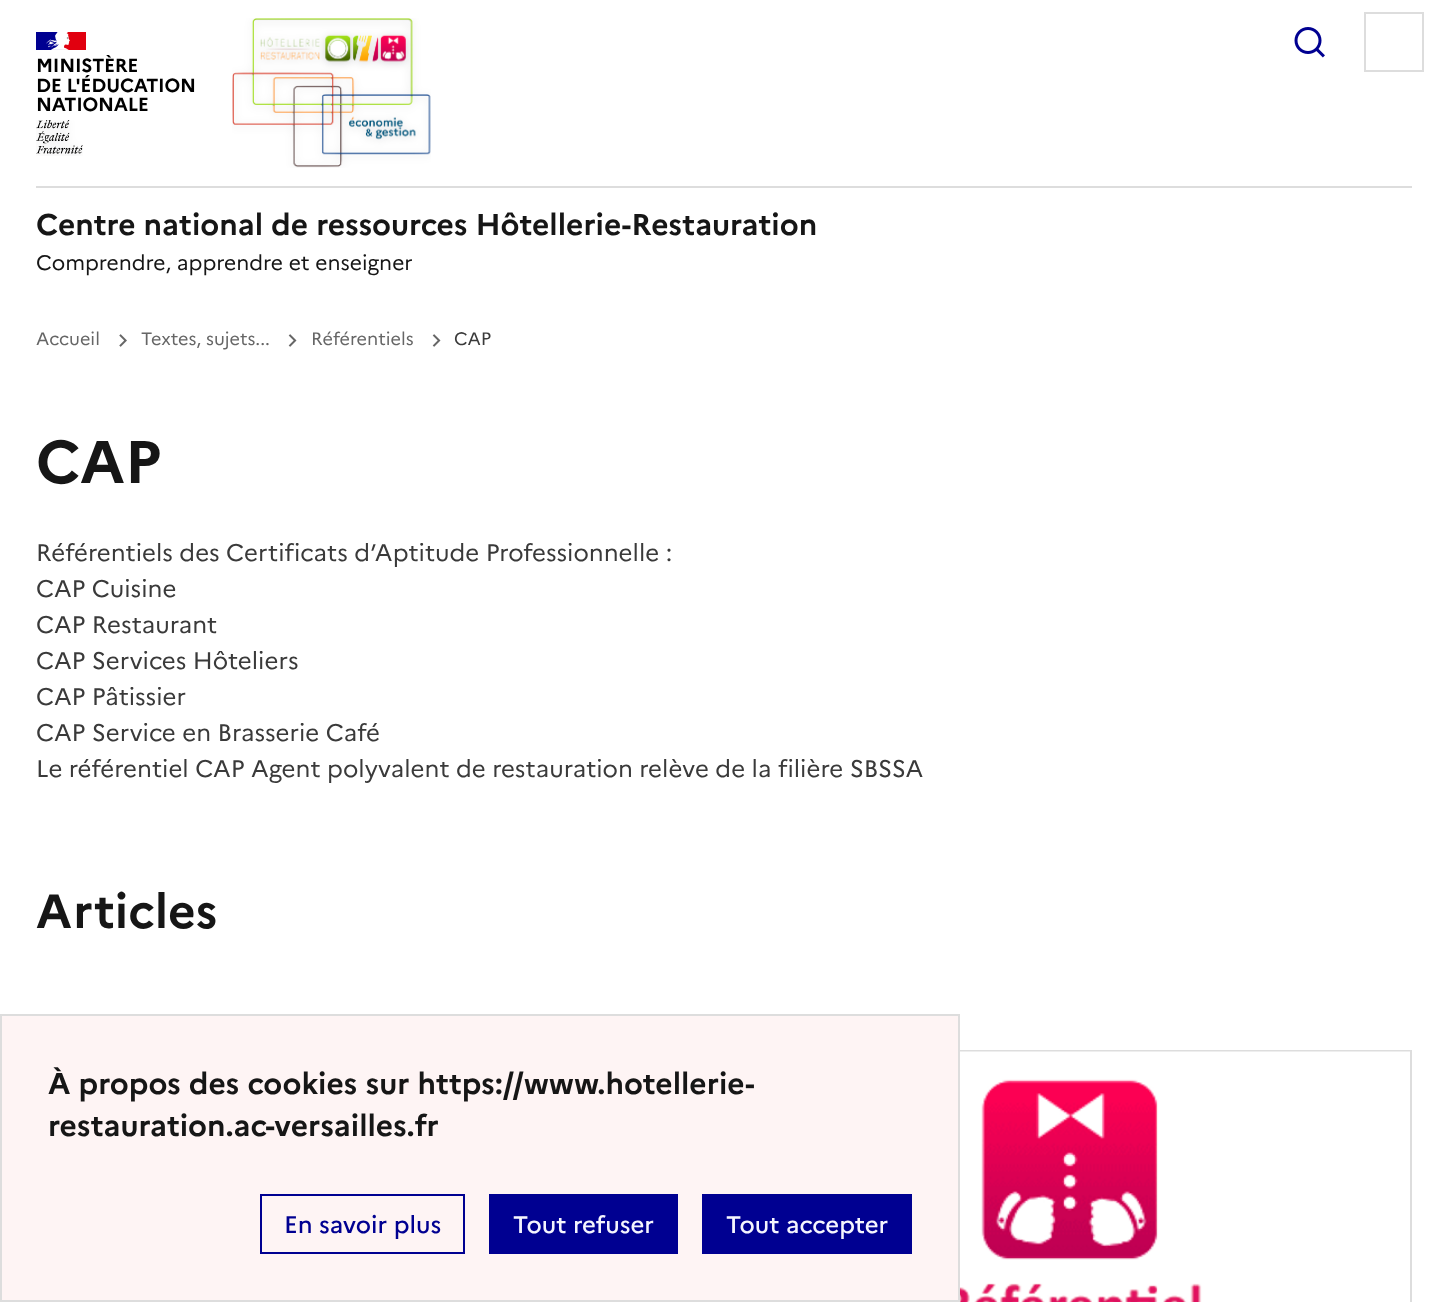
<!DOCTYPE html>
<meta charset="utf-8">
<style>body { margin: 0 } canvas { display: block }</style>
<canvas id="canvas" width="1447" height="1302"></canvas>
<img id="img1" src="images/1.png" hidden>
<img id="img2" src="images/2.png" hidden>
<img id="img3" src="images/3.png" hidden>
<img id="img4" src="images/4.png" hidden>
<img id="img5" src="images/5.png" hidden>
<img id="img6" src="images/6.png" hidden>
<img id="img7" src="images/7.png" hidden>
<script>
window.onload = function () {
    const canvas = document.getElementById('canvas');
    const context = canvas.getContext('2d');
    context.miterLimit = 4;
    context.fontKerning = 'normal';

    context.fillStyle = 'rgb(255, 255, 255)';
    context.fillRect(0, 0, 1447, 1302);
    context.fillStyle = 'rgb(0, 0, 145)';
    context.fillRect(36, 32, 26, 18);
    context.fillStyle = 'rgb(225, 0, 15)';
    context.fillRect(62, 32, 24, 18);
    context.drawImage(document.getElementById('img1'), 46, 32, 24, 18);
    context.drawImage(document.getElementById('img2'), 36, 120, 47, 36);
    context.drawImage(document.getElementById('img3'), 232, 18, 199, 150);
    context.drawImage(document.getElementById('img4'), 1294, 27, 31, 31);
    context.strokeStyle = 'rgb(221, 221, 221)';
    context.lineWidth = 2;
    context.strokeRect(1365, 13, 58, 58);
    context.fillStyle = 'rgb(221, 221, 221)';
    context.fillRect(36, 186, 1376, 2);
    context.drawImage(document.getElementById('img5'), 119, 334, 8, 13);
    context.drawImage(document.getElementById('img6'), 288, 334, 9, 13);
    context.drawImage(document.getElementById('img6'), 432, 334, 9, 13);
    context.fillRect(960, 1050, 452, 2);
    context.fillRect(1410, 1050, 2, 252);
    context.drawImage(document.getElementById('img7'), 960, 1051, 450, 251);
    context.fillStyle = 'rgb(254, 244, 244)';
    context.beginPath();
    context.rect(1, 1015, 958, 286);
    context.fill();
    context.stroke();
    context.strokeStyle = 'rgb(0, 0, 145)';
    context.strokeRect(261, 1195, 203, 58);
    context.fillStyle = 'rgb(0, 0, 145)';
    context.fillRect(489, 1194, 189, 60);
    context.fillRect(702, 1194, 210, 60);
    context.letterSpacing = '-0.25px';
    context.font = 'bold 19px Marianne';
    context.fillStyle = 'rgb(0, 0, 0)';
    context.fillText('MINISTÈRE', 36, 72);
    context.fillText('DE L\'ÉDUCATION', 36, 92);
    context.fillText('NATIONALE', 36, 111);
    context.letterSpacing = '0px';
    context.font = 'bold 30px Marianne';
    context.fillStyle = 'rgb(22, 22, 22)';
    context.fillText('Centre national de ressources Hôtellerie-Restauration', 36, 235);
    context.font = '21px Marianne';
    context.fillText('Comprendre, apprendre et enseigner', 36, 270);
    context.font = '18px Marianne';
    context.fillStyle = 'rgb(102, 102, 102)';
    context.fillText('Accueil', 36, 345);
    context.fillText('Textes, sujets...', 141, 345);
    context.fillText('Référentiels', 311, 345);
    context.fillStyle = 'rgb(58, 58, 58)';
    context.fillText('CAP', 454, 345);
    context.font = 'bold 60px Marianne';
    context.fillStyle = 'rgb(22, 22, 22)';
    context.fillText('CAP', 36, 483);
    context.font = '24px Marianne';
    context.fillStyle = 'rgb(58, 58, 58)';
    context.fillText('Référentiels des Certificats d’Aptitude Professionnelle :', 36, 561);
    context.fillText('CAP Cuisine', 36, 597);
    context.fillText('CAP Restaurant', 36, 633);
    context.fillText('CAP Services Hôteliers', 36, 669);
    context.fillText('CAP Pâtissier', 36, 705);
    context.fillText('CAP Service en Brasserie Café', 36, 741);
    context.fillText('Le référentiel CAP Agent polyvalent de restauration relève de la filière SBSSA', 36, 777);
    context.font = 'bold 48px Marianne';
    context.fillStyle = 'rgb(22, 22, 22)';
    context.fillText('Articles', 36, 928);
    context.font = 'bold 30px Marianne';
    context.fillText('À propos des cookies sur https://www.hotellerie-', 48, 1094);
    context.fillText('restauration.ac-versailles.fr', 48, 1136);
    context.font = '500 24px Marianne';
    context.fillStyle = 'rgb(0, 0, 145)';
    context.fillText('En savoir plus', 284, 1233);
    context.fillStyle = 'rgb(245, 245, 254)';
    context.fillText('Tout refuser', 513, 1233);
    context.fillText('Tout accepter', 726, 1233);
};
</script>
